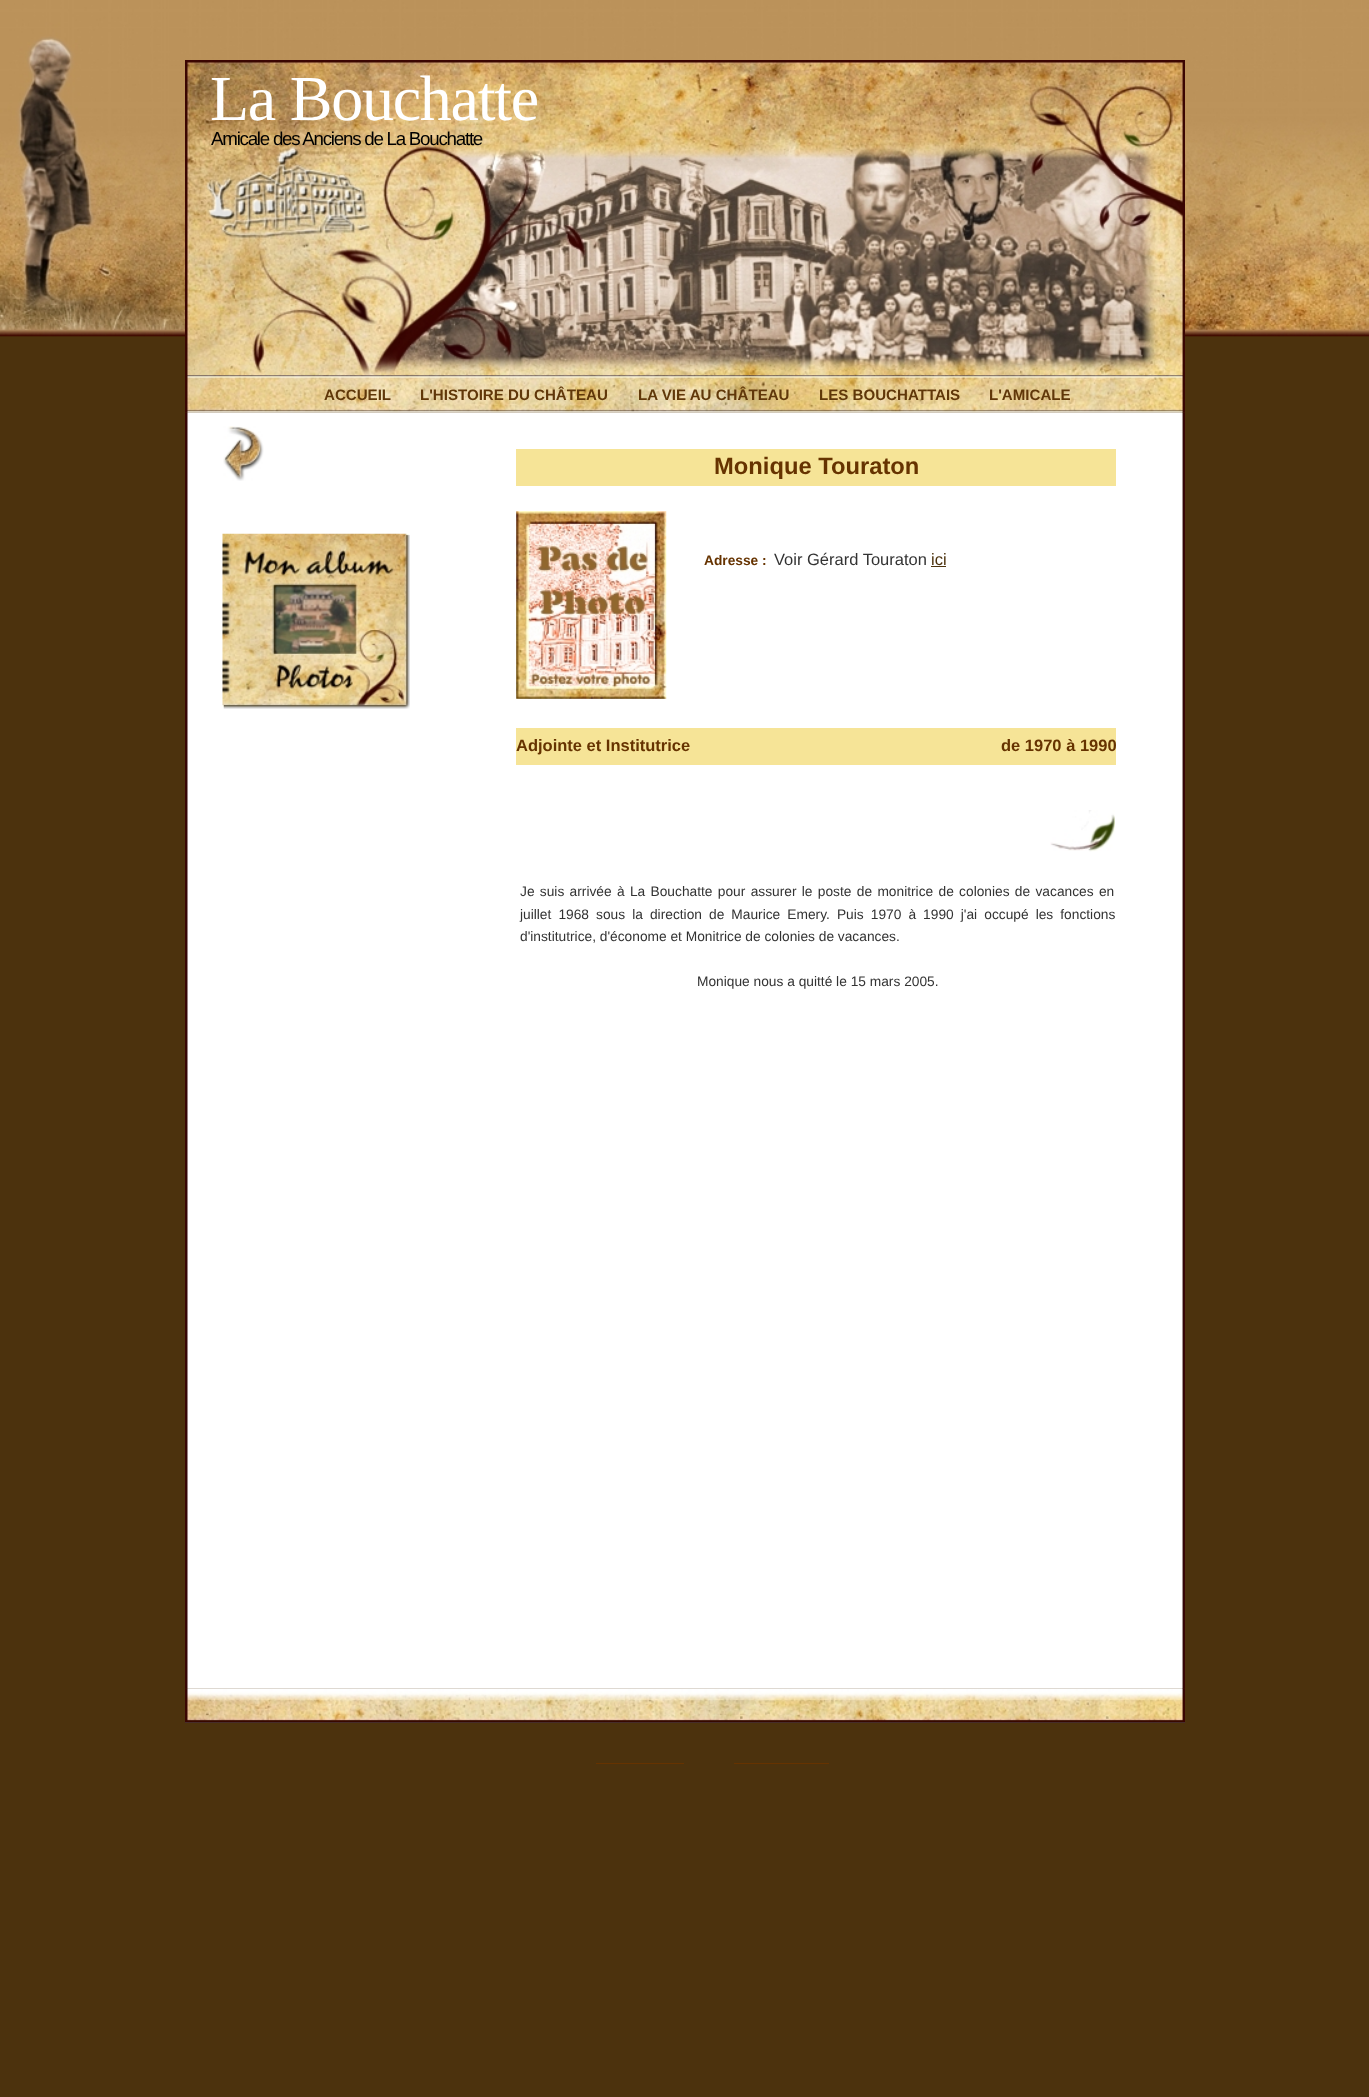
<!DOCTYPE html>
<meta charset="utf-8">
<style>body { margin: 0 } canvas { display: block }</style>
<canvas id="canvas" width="1369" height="2097"></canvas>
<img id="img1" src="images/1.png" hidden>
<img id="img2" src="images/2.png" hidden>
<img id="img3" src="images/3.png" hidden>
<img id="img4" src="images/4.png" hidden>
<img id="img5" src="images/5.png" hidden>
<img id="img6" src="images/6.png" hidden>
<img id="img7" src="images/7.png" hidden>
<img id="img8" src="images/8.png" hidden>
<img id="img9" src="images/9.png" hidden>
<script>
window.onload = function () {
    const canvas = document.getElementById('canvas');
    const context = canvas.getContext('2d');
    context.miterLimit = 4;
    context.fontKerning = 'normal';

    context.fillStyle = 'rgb(76, 50, 13)';
    context.fillRect(0, 0, 1369, 2097);
    context.drawImage(document.getElementById('img1'), 0, 0, 1369, 337);
    context.drawImage(document.getElementById('img2'), 185, 60, 1000, 315);
    context.drawImage(document.getElementById('img3'), 185, 375, 1000, 38);
    context.drawImage(document.getElementById('img4'), 185, 412, 1000, 1277);
    context.drawImage(document.getElementById('img5'), 223, 426, 41, 55);
    context.drawImage(document.getElementById('img6'), 222, 533, 188, 176);
    context.fillStyle = 'rgb(246, 228, 151)';
    context.fillRect(516, 449, 600, 37);
    context.drawImage(document.getElementById('img7'), 516, 511, 151, 188);
    context.fillStyle = 'rgb(76, 50, 13)';
    context.fillRect(931, 566, 15, 1);
    context.fillStyle = 'rgb(246, 228, 151)';
    context.fillRect(516, 728, 600, 37);
    context.drawImage(document.getElementById('img8'), 1050, 810, 65, 42);
    context.fillStyle = 'rgb(85, 85, 85)';
    context.fillRect(185, 1722, 1000, 1);
    context.drawImage(document.getElementById('img9'), 185, 1688, 1000, 35);
    context.fillStyle = 'rgb(102, 51, 0)';
    context.fillRect(596, 1763, 88, 1);
    context.fillRect(734, 1763, 95, 1);
    context.letterSpacing = '-1.25px';
    context.font = '64px Liberation Serif';
    context.fillStyle = 'rgb(255, 255, 255)';
    context.fillText('La Bouchatte', 210, 120);
    context.font = '18.75px Liberation Sans';
    context.fillStyle = 'rgb(0, 0, 0)';
    context.fillText('Amicale des Anciens de La Bouchatte', 211, 145);
    context.letterSpacing = '0px';
    context.font = 'bold 15.1px Liberation Sans';
    context.fillStyle = 'rgb(96, 55, 9)';
    context.fillText('ACCUEIL', 324, 400);
    context.fillText('L\'HISTOIRE DU CHÂTEAU', 420, 400);
    context.fillText('LA VIE AU CHÂTEAU', 638, 400);
    context.fillText('LES BOUCHATTAIS', 819, 400);
    context.fillText('L\'AMICALE', 989, 400);
    context.font = 'bold 23.75px Liberation Sans';
    context.fillStyle = 'rgb(102, 51, 0)';
    context.fillText('Monique Touraton', 714, 474);
    context.font = 'bold 13.75px Liberation Sans';
    context.fillText('Adresse :', 704, 565);
    context.font = '16.5px Liberation Sans';
    context.fillStyle = 'rgb(51, 51, 51)';
    context.fillText('Voir Gérard Touraton', 774, 565);
    context.fillStyle = 'rgb(76, 50, 13)';
    context.fillText('ici', 931, 565);
    context.font = 'bold 16.5px Liberation Sans';
    context.fillStyle = 'rgb(102, 51, 0)';
    context.fillText('Adjointe et Institutrice', 516, 751);
    context.fillText('de 1970 à 1990', 1001, 751);
    context.wordSpacing = '1.5px';
    context.font = '13.75px Liberation Sans';
    context.fillStyle = 'rgb(51, 51, 51)';
    context.fillText('Je suis arrivée à La Bouchatte pour assurer le poste de monitrice de colonies de vacances en', 520, 896);
    context.wordSpacing = '3.25px';
    context.fillText('juillet 1968 sous la direction de Maurice Emery. Puis 1970 à 1990 j\'ai occupé les fonctions', 520, 919);
    context.wordSpacing = '0px';
    context.fillText('d\'institutrice, d\'économe et Monitrice de colonies de vacances.', 520, 941);
    context.fillText('Monique nous a quitté le 15 mars 2005.', 697, 986);
};
</script>
